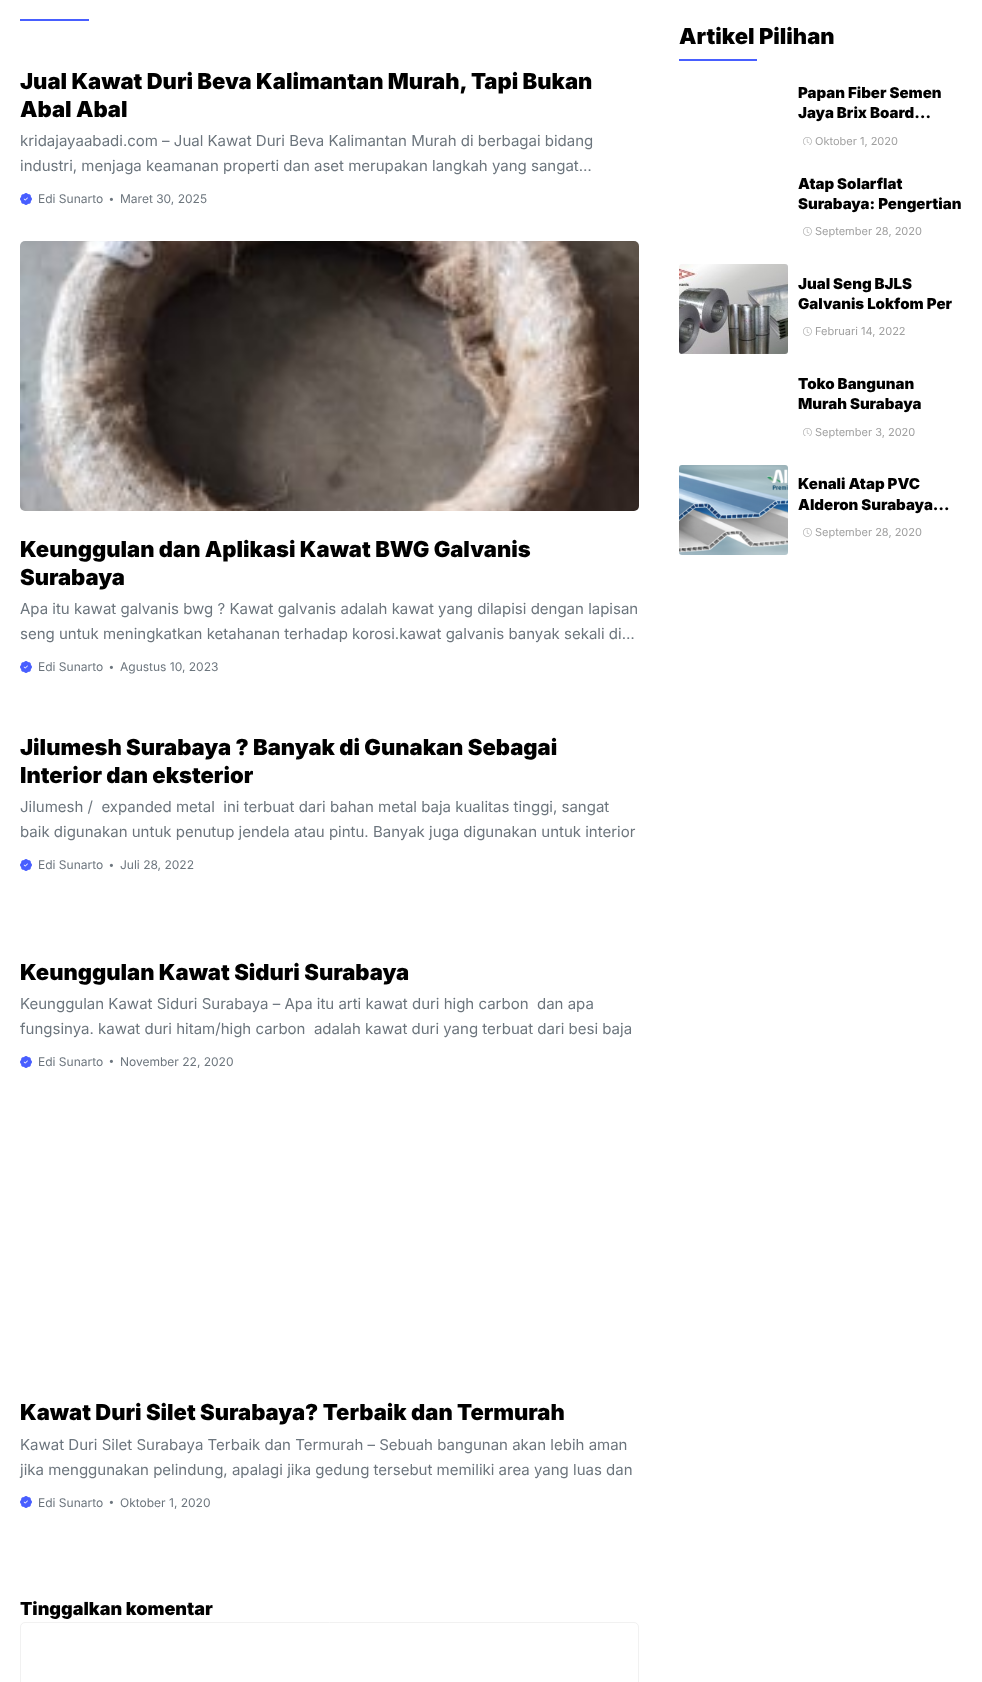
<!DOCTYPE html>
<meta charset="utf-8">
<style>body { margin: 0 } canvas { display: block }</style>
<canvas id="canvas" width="982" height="1682"></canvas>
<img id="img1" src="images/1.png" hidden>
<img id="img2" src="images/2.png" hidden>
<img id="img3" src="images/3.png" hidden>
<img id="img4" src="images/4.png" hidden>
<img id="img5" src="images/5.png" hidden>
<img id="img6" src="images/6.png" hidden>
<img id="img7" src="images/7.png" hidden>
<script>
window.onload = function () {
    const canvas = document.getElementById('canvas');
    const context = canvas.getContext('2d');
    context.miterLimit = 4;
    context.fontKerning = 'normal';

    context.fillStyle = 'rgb(255, 255, 255)';
    context.fillRect(0, 0, 982, 1682);
    context.fillStyle = 'rgb(72, 94, 255)';
    context.fillRect(20, 19, 69, 2);
    context.drawImage(document.getElementById('img1'), 20, 193, 12, 12);
    context.drawImage(document.getElementById('img2'), 109, 197, 4, 4);
    context.drawImage(document.getElementById('img3'), 20, 241, 619, 270);
    context.drawImage(document.getElementById('img1'), 20, 661, 12, 12);
    context.drawImage(document.getElementById('img2'), 109, 665, 4, 4);
    context.drawImage(document.getElementById('img1'), 20, 859, 12, 12);
    context.drawImage(document.getElementById('img2'), 109, 863, 4, 4);
    context.drawImage(document.getElementById('img1'), 20, 1056, 12, 12);
    context.drawImage(document.getElementById('img2'), 109, 1059, 4, 4);
    context.drawImage(document.getElementById('img1'), 20, 1496, 12, 12);
    context.drawImage(document.getElementById('img2'), 109, 1500, 4, 4);
    context.beginPath();
    context.roundRect(20.5, 1622.5, 618, 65, 4.5);
    context.strokeStyle = 'rgb(241, 241, 241)';
    context.stroke();
    context.fillRect(679, 59, 78, 2);
    context.drawImage(document.getElementById('img4'), 803, 137, 9, 8);
    context.drawImage(document.getElementById('img5'), 803, 227, 9, 9);
    context.drawImage(document.getElementById('img6'), 679, 264, 109, 90);
    context.drawImage(document.getElementById('img5'), 803, 327, 9, 9);
    context.drawImage(document.getElementById('img4'), 803, 428, 9, 8);
    context.drawImage(document.getElementById('img7'), 679, 465, 109, 90);
    context.drawImage(document.getElementById('img5'), 803, 528, 9, 9);
    context.font = '900 22px Inter';
    context.fillStyle = 'rgb(0, 0, 0)';
    context.fillText('Jual Kawat Duri Beva Kalimantan Murah, Tapi Bukan', 20, 89);
    context.fillText('Abal Abal', 20, 117);
    context.font = '15px Inter';
    context.fillStyle = 'rgb(108, 117, 125)';
    context.fillText('kridajayaabadi.com – Jual Kawat Duri Beva Kalimantan Murah di berbagai bidang', 20, 146);
    context.fillText('industri, menjaga keamanan properti dan aset merupakan langkah yang sangat…', 20, 171);
    context.font = '12px Inter';
    context.fillText('Edi Sunarto', 38, 203);
    context.fillText('Maret 30, 2025', 120, 203);
    context.font = '900 22px Inter';
    context.fillStyle = 'rgb(0, 0, 0)';
    context.fillText('Keunggulan dan Aplikasi Kawat BWG Galvanis', 20, 557);
    context.fillText('Surabaya', 20, 585);
    context.font = '15px Inter';
    context.fillStyle = 'rgb(108, 117, 125)';
    context.fillText('Apa itu kawat galvanis bwg ? Kawat galvanis adalah kawat yang dilapisi dengan lapisan', 20, 614);
    context.fillText('seng untuk meningkatkan ketahanan terhadap korosi.kawat galvanis banyak sekali di…', 20, 639);
    context.font = '12px Inter';
    context.fillText('Edi Sunarto', 38, 671);
    context.fillText('Agustus 10, 2023', 120, 671);
    context.font = '900 22px Inter';
    context.fillStyle = 'rgb(0, 0, 0)';
    context.fillText('Jilumesh Surabaya ? Banyak di Gunakan Sebagai', 20, 755);
    context.fillText('Interior dan eksterior', 20, 783);
    context.font = '15px Inter';
    context.fillStyle = 'rgb(108, 117, 125)';
    context.fillText('Jilumesh /  expanded metal  ini terbuat dari bahan metal baja kualitas tinggi, sangat', 20, 812);
    context.fillText('baik digunakan untuk penutup jendela atau pintu. Banyak juga digunakan untuk interior', 20, 837);
    context.font = '12px Inter';
    context.fillText('Edi Sunarto', 38, 869);
    context.fillText('Juli 28, 2022', 120, 869);
    context.font = '900 22px Inter';
    context.fillStyle = 'rgb(0, 0, 0)';
    context.fillText('Keunggulan Kawat Siduri Surabaya', 20, 980);
    context.font = '15px Inter';
    context.fillStyle = 'rgb(108, 117, 125)';
    context.fillText('Keunggulan Kawat Siduri Surabaya – Apa itu arti kawat duri high carbon  dan apa', 20, 1009);
    context.fillText('fungsinya. kawat duri hitam/high carbon  adalah kawat duri yang terbuat dari besi baja', 20, 1034);
    context.font = '12px Inter';
    context.fillText('Edi Sunarto', 38, 1066);
    context.fillText('November 22, 2020', 120, 1066);
    context.font = '900 22px Inter';
    context.fillStyle = 'rgb(0, 0, 0)';
    context.fillText('Kawat Duri Silet Surabaya? Terbaik dan Termurah', 20, 1420);
    context.font = '15px Inter';
    context.fillStyle = 'rgb(108, 117, 125)';
    context.fillText('Kawat Duri Silet Surabaya Terbaik dan Termurah – Sebuah bangunan akan lebih aman', 20, 1450);
    context.fillText('jika menggunakan pelindung, apalagi jika gedung tersebut memiliki area yang luas dan', 20, 1475);
    context.font = '12px Inter';
    context.fillText('Edi Sunarto', 38, 1507);
    context.fillText('Oktober 1, 2020', 120, 1507);
    context.font = '900 18px Inter';
    context.fillStyle = 'rgb(0, 0, 0)';
    context.fillText('Tinggalkan komentar', 20, 1615);
    context.font = '900 22px Inter';
    context.fillText('Artikel Pilihan', 679, 44);
    context.font = '900 15px Inter';
    context.fillText('Papan Fiber Semen', 798, 98);
    context.fillText('Jaya Brix Board…', 798, 118);
    context.font = '11px Inter';
    context.fillStyle = 'rgb(160, 160, 160)';
    context.fillText('Oktober 1, 2020', 815, 145);
    context.font = '900 15px Inter';
    context.fillStyle = 'rgb(0, 0, 0)';
    context.fillText('Atap Solarflat', 798, 189);
    context.fillText('Surabaya: Pengertian', 798, 209);
    context.font = '11px Inter';
    context.fillStyle = 'rgb(160, 160, 160)';
    context.fillText('September 28, 2020', 815, 235);
    context.font = '900 15px Inter';
    context.fillStyle = 'rgb(0, 0, 0)';
    context.fillText('Jual Seng BJLS', 798, 289);
    context.fillText('Galvanis Lokfom Per', 798, 309);
    context.font = '11px Inter';
    context.fillStyle = 'rgb(160, 160, 160)';
    context.fillText('Februari 14, 2022', 815, 335);
    context.font = '900 15px Inter';
    context.fillStyle = 'rgb(0, 0, 0)';
    context.fillText('Toko Bangunan', 798, 389);
    context.fillText('Murah Surabaya', 798, 409);
    context.font = '11px Inter';
    context.fillStyle = 'rgb(160, 160, 160)';
    context.fillText('September 3, 2020', 815, 436);
    context.font = '900 15px Inter';
    context.fillStyle = 'rgb(0, 0, 0)';
    context.fillText('Kenali Atap PVC', 798, 489);
    context.fillText('Alderon Surabaya…', 798, 510);
    context.font = '11px Inter';
    context.fillStyle = 'rgb(160, 160, 160)';
    context.fillText('September 28, 2020', 815, 536);
};
</script>
